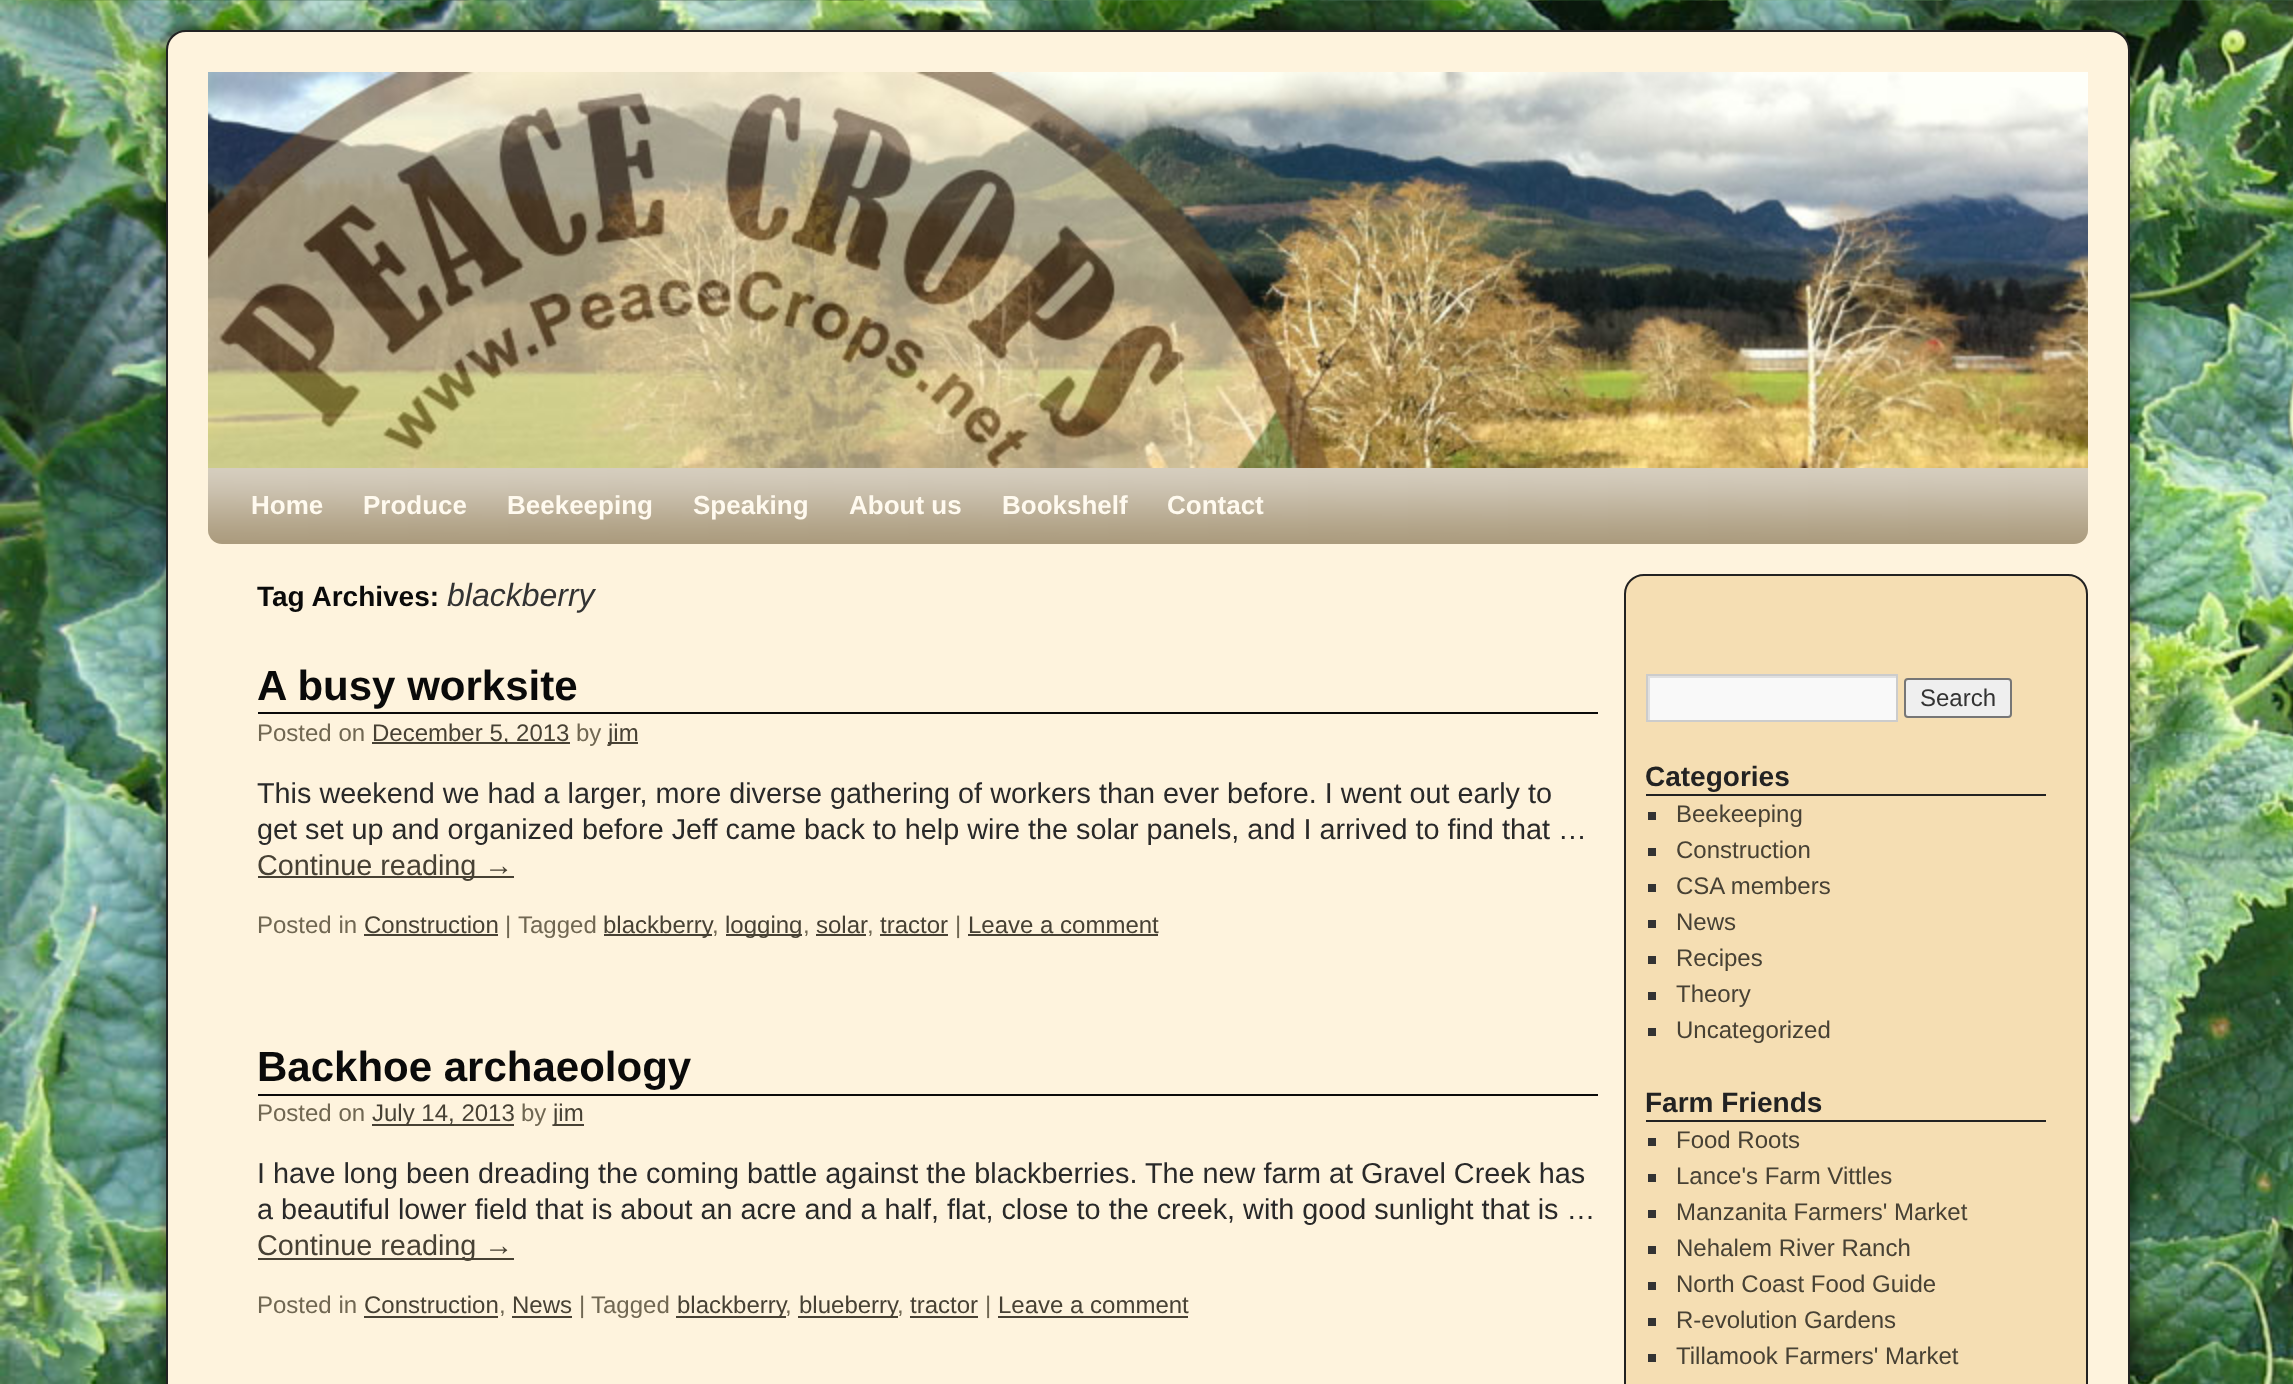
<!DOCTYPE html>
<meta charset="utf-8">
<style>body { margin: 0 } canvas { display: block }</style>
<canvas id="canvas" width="2293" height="1384"></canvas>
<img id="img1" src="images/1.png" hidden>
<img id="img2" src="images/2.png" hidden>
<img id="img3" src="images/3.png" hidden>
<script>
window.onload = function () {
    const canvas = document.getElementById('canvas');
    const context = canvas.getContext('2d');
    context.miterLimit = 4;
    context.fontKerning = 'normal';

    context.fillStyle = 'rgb(255, 255, 255)';
    context.fillRect(0, 0, 2293, 1384);
    context.drawImage(document.getElementById('img1'), 0, 0, 2293, 1384);
    context.fillStyle = 'rgba(0, 0, 0, 0.25)';
    context.filter = 'blur(3px)';
    context.beginPath();
    context.roundRect(160, 24, 1976, 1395, 26);
    context.fill();
    context.filter = 'none';
    context.fillStyle = 'rgb(254, 243, 221)';
    context.beginPath();
    context.roundRect(167, 31, 1962, 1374, 19);
    context.fill();
    context.strokeStyle = 'rgb(34, 34, 34)';
    context.lineWidth = 2;
    context.stroke();
    context.drawImage(document.getElementById('img2'), 208, 72, 1880, 396);
    context.fillStyle = 'rgb(171, 155, 125)';
    context.beginPath();
    context.roundRect(208, 468, 1880, 76, [0, 0, 14, 14]);
    context.fill();
    context.drawImage(document.getElementById('img3'), 208, 468, 1880, 72);
    context.fillStyle = 'rgb(10, 10, 10)';
    context.fillRect(258, 712, 1340, 2);
    context.fillStyle = 'rgb(71, 65, 52)';
    context.fillRect(372, 742, 198, 2);
    context.fillRect(608, 742, 30, 2);
    context.fillRect(258, 876, 256, 2);
    context.fillRect(364, 934, 134, 2);
    context.fillRect(604, 934, 108, 2);
    context.fillRect(726, 934, 76, 2);
    context.fillRect(816, 934, 50, 2);
    context.fillRect(880, 934, 68, 2);
    context.fillRect(968, 934, 190, 2);
    context.fillStyle = 'rgb(10, 10, 10)';
    context.fillRect(258, 1094, 1340, 2);
    context.fillStyle = 'rgb(71, 65, 52)';
    context.fillRect(372, 1124, 142, 2);
    context.fillRect(554, 1124, 30, 2);
    context.fillRect(258, 1258, 256, 2);
    context.fillRect(364, 1316, 134, 2);
    context.fillRect(512, 1316, 60, 2);
    context.fillRect(676, 1316, 110, 2);
    context.fillRect(798, 1316, 100, 2);
    context.fillRect(910, 1316, 68, 2);
    context.fillRect(998, 1316, 190, 2);
    context.fillStyle = 'rgb(245, 222, 179)';
    context.beginPath();
    context.roundRect(1625, 575, 462, 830, 19);
    context.fill();
    context.stroke();
    context.fillStyle = 'rgb(249, 249, 249)';
    context.fillRect(1650, 678, 246, 42);
    context.save();
    context.beginPath();
    context.rect(1648, 676, 248, 44);
    context.clip();
    context.fillStyle = 'rgb(224, 224, 224)';
    context.beginPath();
    context.moveTo(1644, 576);
    context.lineTo(2068, 576);
    context.bezierCurveTo(2078, 576, 2086, 584, 2086, 594);
    context.lineTo(2086, 918);
    context.lineTo(1626, 918);
    context.lineTo(1626, 594);
    context.bezierCurveTo(1626, 584, 1634, 576, 1644, 576);
    context.closePath();
    context.moveTo(1650, 678);
    context.lineTo(1650, 722);
    context.lineTo(1898, 722);
    context.lineTo(1898, 678);
    context.closePath();
    context.fill('evenodd');
    context.restore();
    context.strokeStyle = 'rgb(204, 204, 204)';
    context.strokeRect(1647, 675, 250, 46);
    context.fillStyle = 'rgb(239, 239, 239)';
    context.beginPath();
    context.roundRect(1905, 679, 106, 38, 3);
    context.fill();
    context.strokeStyle = 'rgb(118, 118, 118)';
    context.stroke();
    context.fillStyle = 'rgb(34, 34, 34)';
    context.fillRect(1646, 794, 400, 2);
    context.fillStyle = 'rgb(51, 51, 51)';
    context.fillRect(1648, 812, 8, 8);
    context.fillRect(1648, 848, 8, 8);
    context.fillRect(1648, 884, 8, 8);
    context.fillRect(1648, 920, 8, 8);
    context.fillRect(1648, 956, 8, 8);
    context.fillRect(1648, 992, 8, 8);
    context.fillRect(1648, 1028, 8, 8);
    context.fillStyle = 'rgb(34, 34, 34)';
    context.fillRect(1646, 1120, 400, 2);
    context.fillStyle = 'rgb(51, 51, 51)';
    context.fillRect(1648, 1138, 8, 8);
    context.fillRect(1648, 1174, 8, 8);
    context.fillRect(1648, 1210, 8, 8);
    context.fillRect(1648, 1246, 8, 8);
    context.fillRect(1648, 1282, 8, 8);
    context.fillRect(1648, 1318, 8, 8);
    context.fillRect(1648, 1354, 8, 8);
    context.font = 'bold 26px Liberation Sans';
    context.fillStyle = 'rgb(255, 250, 239)';
    context.fillText('Home', 251, 514);
    context.fillText('Produce', 363, 514);
    context.fillText('Beekeeping', 507, 514);
    context.fillText('Speaking', 693, 514);
    context.fillText('About us', 849, 514);
    context.fillText('Bookshelf', 1002, 514);
    context.fillText('Contact', 1167, 514);
    context.font = 'bold 28px Liberation Sans';
    context.fillStyle = 'rgb(10, 10, 10)';
    context.fillText('Tag Archives:', 257, 606);
    context.font = 'italic 32px Liberation Sans';
    context.fillStyle = 'rgb(51, 51, 51)';
    context.fillText('blackberry', 447, 606);
    context.font = 'bold 42px Liberation Sans';
    context.fillStyle = 'rgb(10, 10, 10)';
    context.fillText('A busy worksite', 257, 700);
    context.font = '24px Liberation Sans';
    context.fillStyle = 'rgb(112, 103, 82)';
    context.fillText('Posted on', 257, 741);
    context.fillStyle = 'rgb(71, 65, 52)';
    context.fillText('December 5, 2013', 372, 741);
    context.fillStyle = 'rgb(112, 103, 82)';
    context.fillText('by', 576, 741);
    context.fillStyle = 'rgb(71, 65, 52)';
    context.fillText('jim', 608, 741);
    context.font = '28.8px Liberation Sans';
    context.fillStyle = 'rgb(41, 41, 41)';
    context.fillText('This weekend we had a larger, more diverse gathering of workers than ever before. I went out early to', 257, 803);
    context.fillText('get set up and organized before Jeff came back to help wire the solar panels, and I arrived to find that …', 257, 839);
    context.fillStyle = 'rgb(71, 65, 52)';
    context.fillText('Continue reading →', 257, 875);
    context.font = '24px Liberation Sans';
    context.fillStyle = 'rgb(112, 103, 82)';
    context.fillText('Posted in', 257, 933);
    context.fillStyle = 'rgb(71, 65, 52)';
    context.fillText('Construction', 364, 933);
    context.fillStyle = 'rgb(112, 103, 82)';
    context.fillText('|', 505, 933);
    context.fillText('Tagged', 518, 933);
    context.fillStyle = 'rgb(71, 65, 52)';
    context.fillText('blackberry', 603, 933);
    context.fillStyle = 'rgb(112, 103, 82)';
    context.fillText(',', 712, 933);
    context.fillStyle = 'rgb(71, 65, 52)';
    context.fillText('logging', 725, 933);
    context.fillStyle = 'rgb(112, 103, 82)';
    context.fillText(',', 803, 933);
    context.fillStyle = 'rgb(71, 65, 52)';
    context.fillText('solar', 816, 933);
    context.fillStyle = 'rgb(112, 103, 82)';
    context.fillText(',', 867, 933);
    context.fillStyle = 'rgb(71, 65, 52)';
    context.fillText('tractor', 880, 933);
    context.fillStyle = 'rgb(112, 103, 82)';
    context.fillText('|', 955, 933);
    context.fillStyle = 'rgb(71, 65, 52)';
    context.fillText('Leave a comment', 968, 933);
    context.font = 'bold 42px Liberation Sans';
    context.fillStyle = 'rgb(10, 10, 10)';
    context.fillText('Backhoe archaeology', 257, 1081);
    context.font = '24px Liberation Sans';
    context.fillStyle = 'rgb(112, 103, 82)';
    context.fillText('Posted on', 257, 1121);
    context.fillStyle = 'rgb(71, 65, 52)';
    context.fillText('July 14, 2013', 372, 1121);
    context.fillStyle = 'rgb(112, 103, 82)';
    context.fillText('by', 521, 1121);
    context.fillStyle = 'rgb(71, 65, 52)';
    context.fillText('jim', 553, 1121);
    context.font = '28.8px Liberation Sans';
    context.fillStyle = 'rgb(41, 41, 41)';
    context.fillText('I have long been dreading the coming battle against the blackberries. The new farm at Gravel Creek has', 257, 1183);
    context.fillText('a beautiful lower field that is about an acre and a half, flat, close to the creek, with good sunlight that is …', 257, 1219);
    context.fillStyle = 'rgb(71, 65, 52)';
    context.fillText('Continue reading →', 257, 1255);
    context.font = '24px Liberation Sans';
    context.fillStyle = 'rgb(112, 103, 82)';
    context.fillText('Posted in', 257, 1313);
    context.fillStyle = 'rgb(71, 65, 52)';
    context.fillText('Construction', 364, 1313);
    context.fillStyle = 'rgb(112, 103, 82)';
    context.fillText(',', 499, 1313);
    context.fillStyle = 'rgb(71, 65, 52)';
    context.fillText('News', 512, 1313);
    context.fillStyle = 'rgb(112, 103, 82)';
    context.fillText('|', 579, 1313);
    context.fillText('Tagged', 591, 1313);
    context.fillStyle = 'rgb(71, 65, 52)';
    context.fillText('blackberry', 677, 1313);
    context.fillStyle = 'rgb(112, 103, 82)';
    context.fillText(',', 785, 1313);
    context.fillStyle = 'rgb(71, 65, 52)';
    context.fillText('blueberry', 799, 1313);
    context.fillStyle = 'rgb(112, 103, 82)';
    context.fillText(',', 897, 1313);
    context.fillStyle = 'rgb(71, 65, 52)';
    context.fillText('tractor', 910, 1313);
    context.fillStyle = 'rgb(112, 103, 82)';
    context.fillText('|', 985, 1313);
    context.fillStyle = 'rgb(71, 65, 52)';
    context.fillText('Leave a comment', 998, 1313);
    context.fillStyle = 'rgb(51, 51, 51)';
    context.fillText('Search', 1920, 706);
    context.font = 'bold 28px Liberation Sans';
    context.fillStyle = 'rgb(34, 34, 34)';
    context.fillText('Categories', 1645, 786);
    context.font = '24px Liberation Sans';
    context.fillStyle = 'rgb(71, 65, 52)';
    context.fillText('Beekeeping', 1676, 822);
    context.fillText('Construction', 1676, 858);
    context.fillText('CSA members', 1676, 894);
    context.fillText('News', 1676, 930);
    context.fillText('Recipes', 1676, 966);
    context.fillText('Theory', 1676, 1002);
    context.fillText('Uncategorized', 1676, 1038);
    context.font = 'bold 28px Liberation Sans';
    context.fillStyle = 'rgb(34, 34, 34)';
    context.fillText('Farm Friends', 1645, 1112);
    context.font = '24px Liberation Sans';
    context.fillStyle = 'rgb(71, 65, 52)';
    context.fillText('Food Roots', 1676, 1148);
    context.fillText('Lance\'s Farm Vittles', 1676, 1184);
    context.fillText('Manzanita Farmers\' Market', 1676, 1220);
    context.fillText('Nehalem River Ranch', 1676, 1256);
    context.fillText('North Coast Food Guide', 1676, 1292);
    context.fillText('R-evolution Gardens', 1676, 1328);
    context.fillText('Tillamook Farmers\' Market', 1676, 1364);
};
</script>
